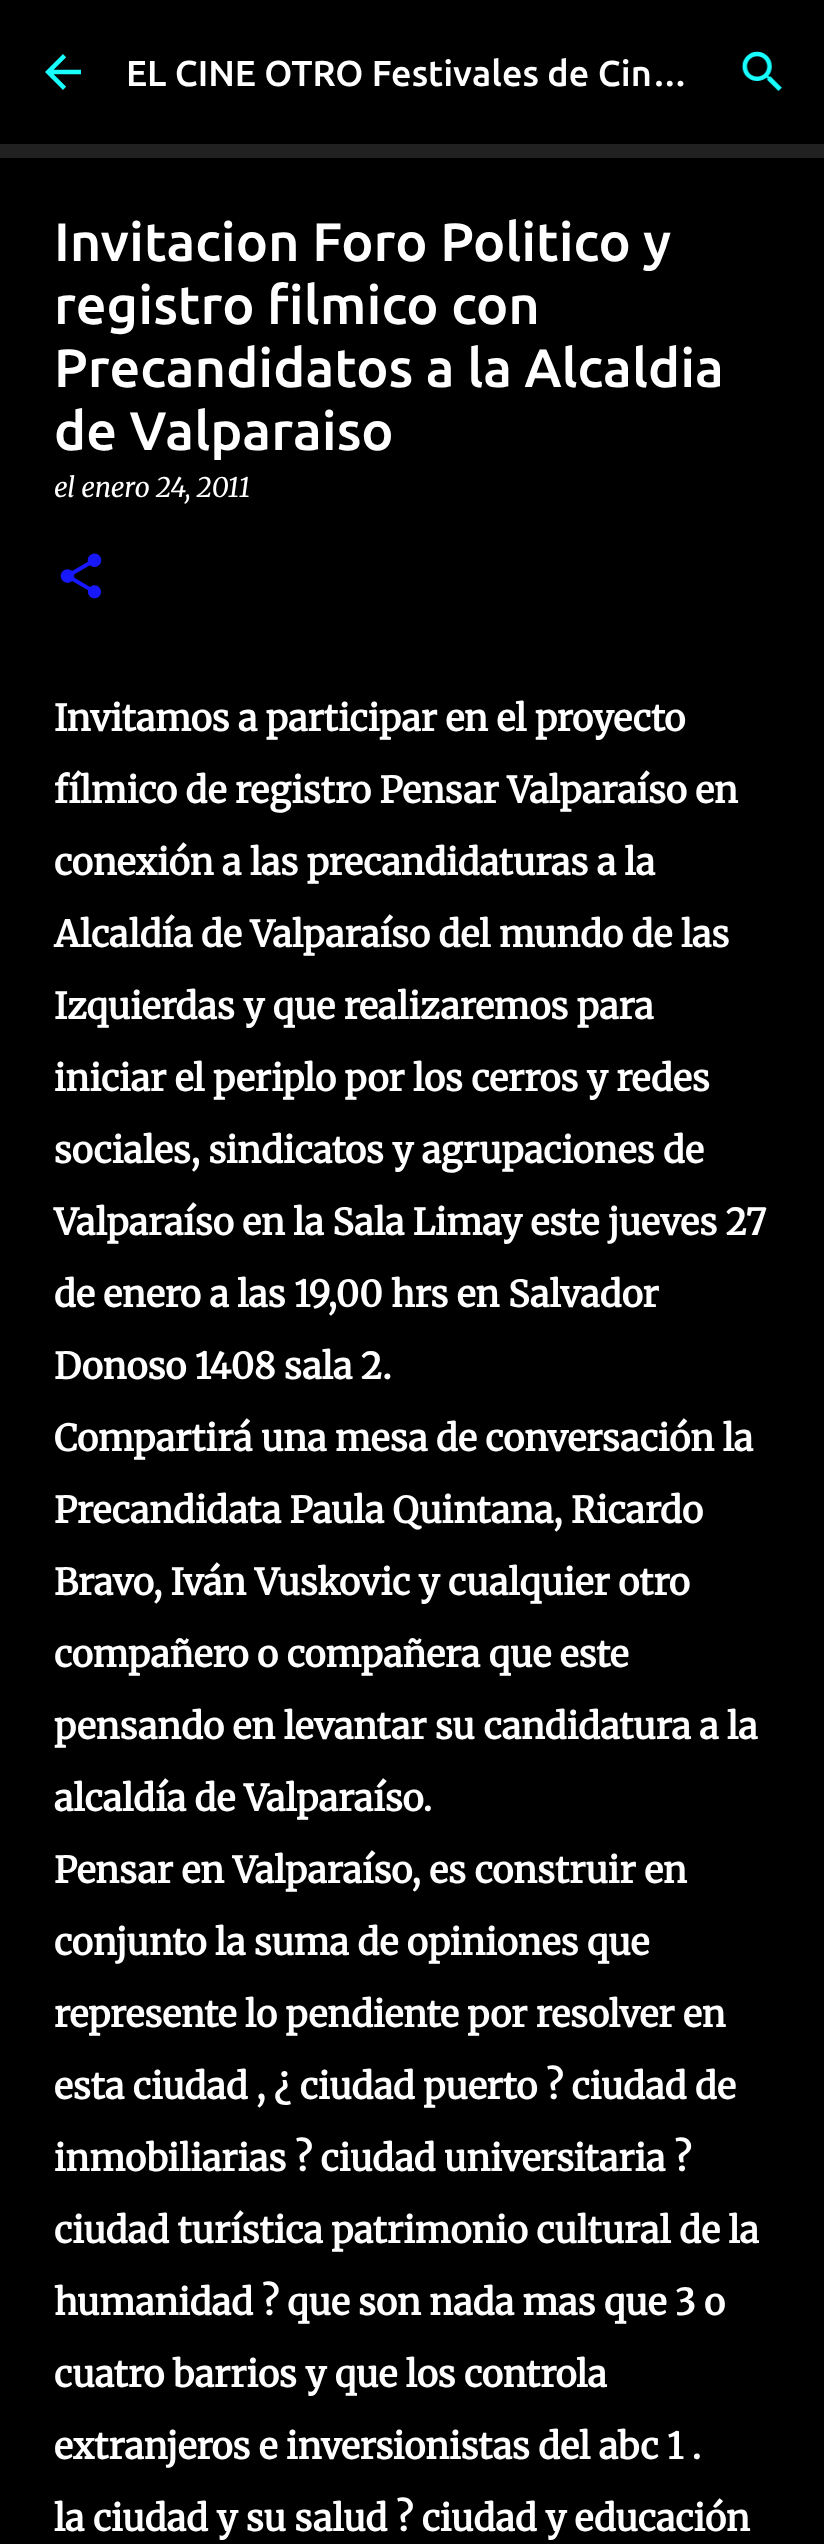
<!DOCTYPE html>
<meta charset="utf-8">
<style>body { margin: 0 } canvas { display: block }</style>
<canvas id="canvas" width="824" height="2544"></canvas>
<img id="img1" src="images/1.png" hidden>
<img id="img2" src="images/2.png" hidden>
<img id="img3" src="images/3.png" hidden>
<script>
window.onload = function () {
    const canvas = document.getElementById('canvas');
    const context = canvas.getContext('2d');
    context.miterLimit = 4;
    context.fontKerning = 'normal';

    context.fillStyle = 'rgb(33, 33, 33)';
    context.fillRect(0, 0, 824, 2544);
    context.fillStyle = 'rgb(0, 0, 0)';
    context.fillRect(0, 0, 824, 144);
    context.drawImage(document.getElementById('img1'), 45, 54, 36, 36);
    context.drawImage(document.getElementById('img2'), 741, 51, 41, 40);
    context.fillRect(0, 158, 824, 2386);
    context.drawImage(document.getElementById('img3'), 60, 553, 42, 46);
    context.font = '500 36px Ubuntu';
    context.fillStyle = 'rgb(255, 255, 255)';
    context.fillText('EL CINE OTRO Festivales de Cin…', 126, 86);
    context.font = '500 54px Ubuntu';
    context.fillText('Invitacion Foro Politico y', 54, 261);
    context.fillText('registro filmico con', 54, 324);
    context.fillText('Precandidatos a la Alcaldia', 54, 387);
    context.fillText('de Valparaiso', 54, 450);
    context.font = 'italic 27px Merriweather';
    context.fillText('el enero 24, 2011', 54, 497);
    context.font = 'bold 36px Merriweather';
    context.fillText('Invitamos a participar en el proyecto', 54, 731);
    context.fillText('fílmico de registro Pensar Valparaíso en', 54, 803);
    context.fillText('conexión a las precandidaturas a la', 54, 875);
    context.fillText('Alcaldía de Valparaíso del mundo de las', 54, 947);
    context.fillText('Izquierdas y que realizaremos para', 54, 1019);
    context.fillText('iniciar el periplo por los cerros y redes', 54, 1091);
    context.fillText('sociales, sindicatos y agrupaciones de', 54, 1163);
    context.fillText('Valparaíso en la Sala Limay este jueves 27', 54, 1235);
    context.fillText('de enero a las 19,00 hrs en Salvador', 54, 1307);
    context.fillText('Donoso 1408 sala 2.', 54, 1379);
    context.fillText('Compartirá una mesa de conversación la', 54, 1451);
    context.fillText('Precandidata Paula Quintana, Ricardo', 54, 1523);
    context.fillText('Bravo, Iván Vuskovic y cualquier otro', 54, 1595);
    context.fillText('compañero o compañera que este', 54, 1667);
    context.fillText('pensando en levantar su candidatura a la', 54, 1739);
    context.fillText('alcaldía de Valparaíso.', 54, 1811);
    context.fillText('Pensar en Valparaíso, es construir en', 54, 1883);
    context.fillText('conjunto la suma de opiniones que', 54, 1955);
    context.fillText('represente lo pendiente por resolver en', 54, 2027);
    context.fillText('esta ciudad , ¿ ciudad puerto ? ciudad de', 54, 2099);
    context.fillText('inmobiliarias ? ciudad universitaria ?', 54, 2171);
    context.fillText('ciudad turística patrimonio cultural de la', 54, 2243);
    context.fillText('humanidad ? que son nada mas que 3 o', 54, 2315);
    context.fillText('cuatro barrios y que los controla', 54, 2387);
    context.fillText('extranjeros e inversionistas del abc 1 .', 54, 2459);
    context.fillText('la ciudad y su salud ? ciudad y educación', 54, 2531);
};
</script>
